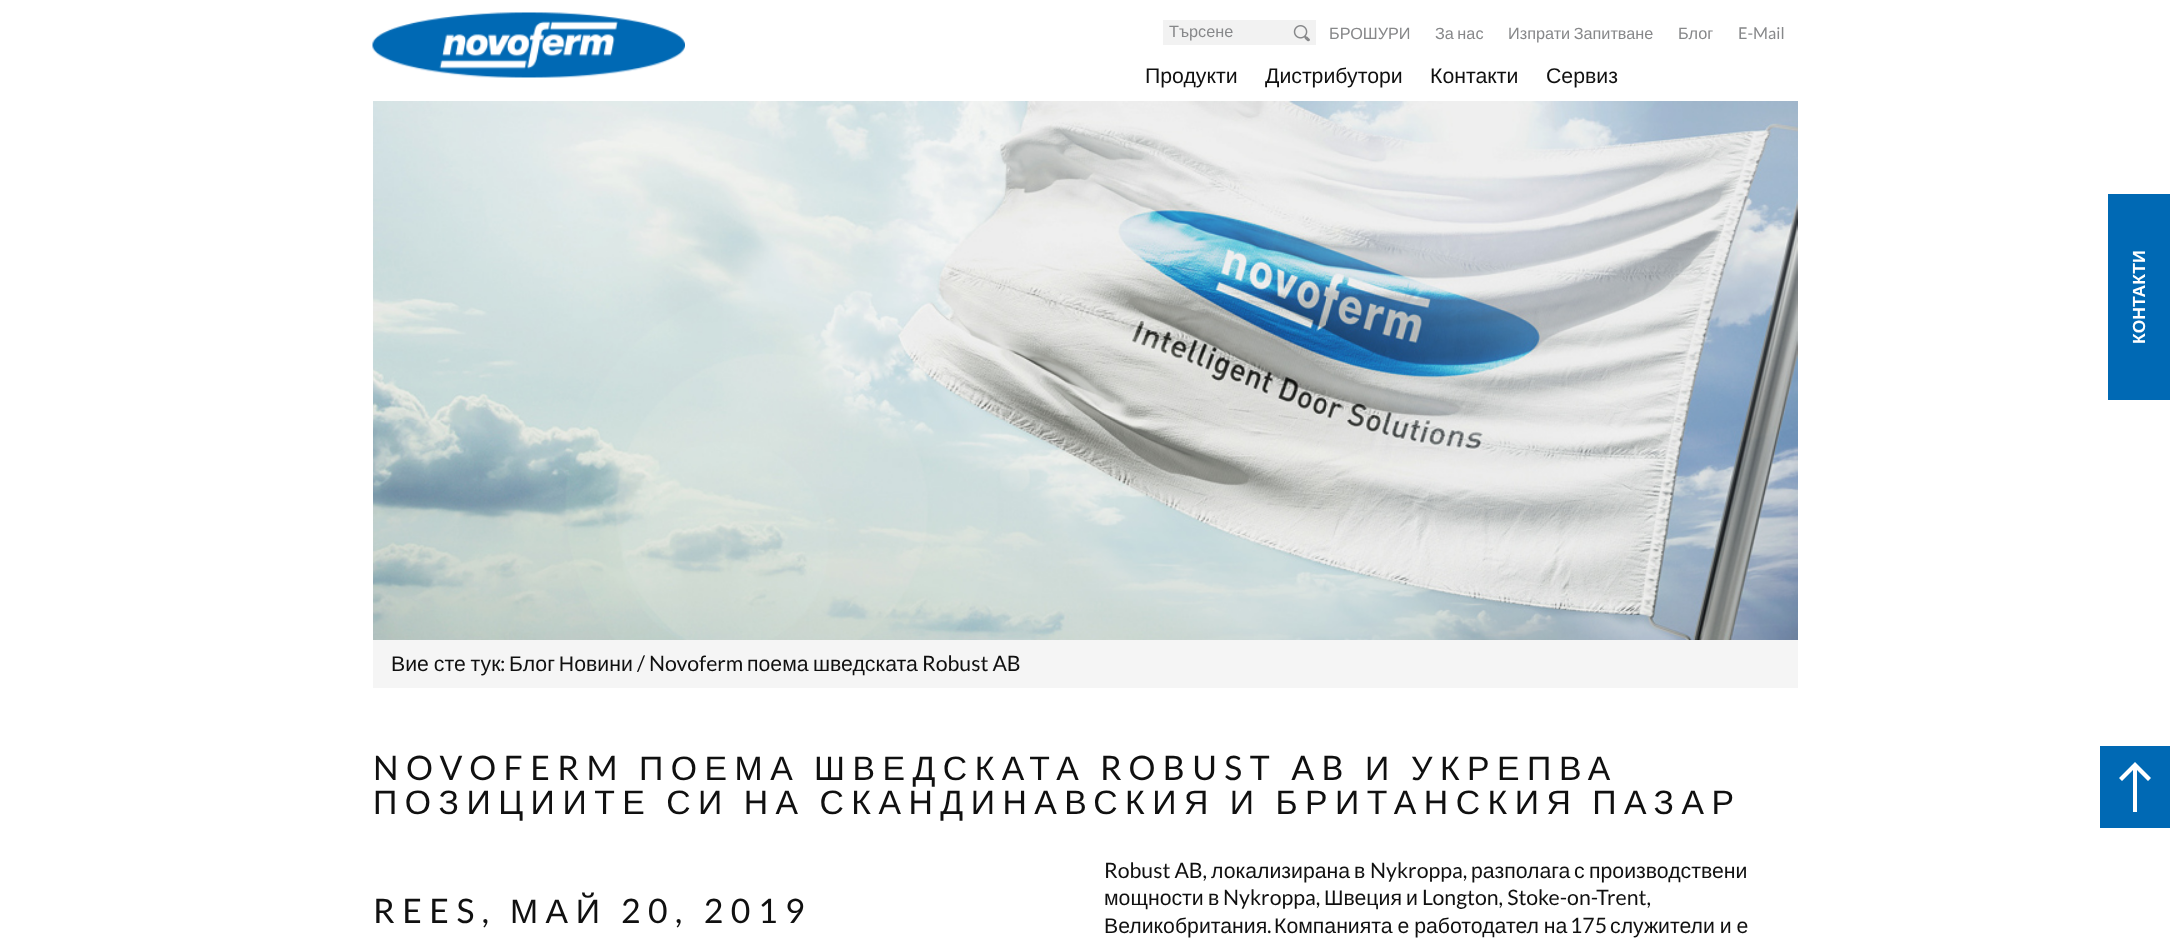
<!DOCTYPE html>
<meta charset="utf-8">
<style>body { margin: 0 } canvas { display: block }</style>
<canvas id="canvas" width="2170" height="950"></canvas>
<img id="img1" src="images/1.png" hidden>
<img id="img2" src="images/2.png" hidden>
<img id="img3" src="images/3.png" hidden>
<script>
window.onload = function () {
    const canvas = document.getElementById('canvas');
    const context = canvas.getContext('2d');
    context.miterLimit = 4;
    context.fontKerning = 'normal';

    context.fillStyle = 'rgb(255, 255, 255)';
    context.fillRect(0, 0, 2170, 950);
    context.drawImage(document.getElementById('img1'), 372, 12, 313, 66);
    context.fillStyle = 'rgb(242, 242, 242)';
    context.fillRect(1163, 20, 153, 25);
    context.drawImage(document.getElementById('img2'), 1293, 25, 17, 17);
    context.drawImage(document.getElementById('img3'), 373, 101, 1425, 539);
    context.fillStyle = 'rgb(0, 105, 180)';
    context.fillRect(2108, 194, 62, 206);
    context.fillStyle = 'rgb(245, 245, 245)';
    context.fillRect(373, 640, 1425, 48);
    context.fillStyle = 'rgb(0, 105, 180)';
    context.fillRect(2100, 746, 70, 82);
    context.fillStyle = 'rgb(255, 255, 255)';
    context.beginPath();
    context.moveTo(2132, 765);
    context.lineTo(2135, 762);
    context.lineTo(2151, 778);
    context.lineTo(2148, 781);
    context.lineTo(2137, 770);
    context.lineTo(2137, 812);
    context.lineTo(2133, 812);
    context.lineTo(2133, 770);
    context.lineTo(2122, 781);
    context.lineTo(2119, 778);
    context.closePath();
    context.fill();
    context.font = '16.25px Liberation Sans';
    context.fillStyle = 'rgb(135, 136, 138)';
    context.fillText('Търсене', 1169, 37);
    context.fillText('БРОШУРИ', 1329, 39);
    context.wordSpacing = '-1px';
    context.fillText('За нас', 1435, 39);
    context.fillText('Изпрати Запитване', 1508, 39);
    context.wordSpacing = '0px';
    context.fillText('Блог', 1678, 39);
    context.font = '16.25px Lato';
    context.fillText('E-Mail', 1738, 39);
    context.font = '21.25px Liberation Sans';
    context.fillStyle = 'rgb(16, 16, 16)';
    context.fillText('Продукти', 1145, 83);
    context.fillText('Дистрибутори', 1265, 83);
    context.fillText('Контакти', 1430, 83);
    context.fillText('Сервиз', 1546, 83);
    context.font = 'bold 17.5px Liberation Sans';
    context.fillStyle = 'rgb(255, 255, 255)';
    context.save();
    context.translate(2145, 344);
    context.rotate(-90 * Math.PI / 180);
    context.fillText('КОНТАКТИ', 0, 0);
    context.restore();
    context.wordSpacing = '-1px';
    context.font = '21.25px Liberation Sans';
    context.fillStyle = 'rgb(16, 16, 16)';
    context.fillText('Вие сте тук', 391, 671);
    context.wordSpacing = '0px';
    context.font = '21.25px Lato';
    context.fillText(':', 500, 671);
    context.wordSpacing = '-2px';
    context.font = '21.25px Liberation Sans';
    context.fillText('Блог Новини', 509, 671);
    context.wordSpacing = '0px';
    context.font = '21.25px Lato';
    context.fillText('/ Novoferm', 637, 671);
    context.font = '21.25px Liberation Sans';
    context.fillText('поема', 747, 671);
    context.fillText('шведската', 813, 671);
    context.font = '21.25px Lato';
    context.fillText('Robust AB', 922, 671);
    context.letterSpacing = '7.5px';
    context.font = '33.75px Lato';
    context.fillText('NOVOFERM', 373, 780);
    context.font = '33.75px Liberation Sans';
    context.fillText('ПОЕМА', 639, 780);
    context.fillText('ШВЕДСКАТА', 814, 780);
    context.font = '33.75px Lato';
    context.fillText('ROBUST AB', 1100, 780);
    context.font = '33.75px Liberation Sans';
    context.fillText('И', 1365, 780);
    context.fillText('УКРЕПВА', 1411, 780);
    context.wordSpacing = '-3px';
    context.fillText('ПОЗИЦИИТЕ СИ НА СКАНДИНАВСКИЯ И БРИТАНСКИЯ ПАЗАР', 373, 814);
    context.wordSpacing = '0px';
    context.font = '33.75px Lato';
    context.fillText('REES,', 373, 923);
    context.font = '33.75px Liberation Sans';
    context.fillText('МАЙ', 510, 923);
    context.font = '33.75px Lato';
    context.fillText('20, 2019', 621, 923);
    context.letterSpacing = '0px';
    context.font = '21.25px Lato';
    context.fillText('Robust AB,', 1104, 878);
    context.font = '21.25px Liberation Sans';
    context.fillText('локализирана', 1211, 878);
    context.fillText('в', 1354, 878);
    context.font = '21.25px Lato';
    context.fillText('Nykroppa,', 1370, 878);
    context.font = '21.25px Liberation Sans';
    context.fillText('разполага', 1471, 878);
    context.fillText('с', 1574, 878);
    context.fillText('производствени', 1589, 878);
    context.fillText('мощности', 1104, 905);
    context.fillText('в', 1208, 905);
    context.font = '21.25px Lato';
    context.fillText('Nykroppa,', 1223, 905);
    context.font = '21.25px Liberation Sans';
    context.fillText('Швеция', 1324, 905);
    context.fillText('и', 1406, 905);
    context.font = '21.25px Lato';
    context.fillText('Longton, Stoke-on-Trent,', 1422, 905);
    context.font = '21.25px Liberation Sans';
    context.fillText('Великобритания', 1104, 933);
    context.font = '21.25px Lato';
    context.fillText('.', 1267, 933);
    context.wordSpacing = '-1px';
    context.font = '21.25px Liberation Sans';
    context.fillText('Компанията е работодател на', 1274, 933);
    context.wordSpacing = '0px';
    context.font = '21.25px Lato';
    context.fillText('175', 1570, 933);
    context.wordSpacing = '-1px';
    context.font = '21.25px Liberation Sans';
    context.fillText('служители и е', 1610, 933);
};
</script>
